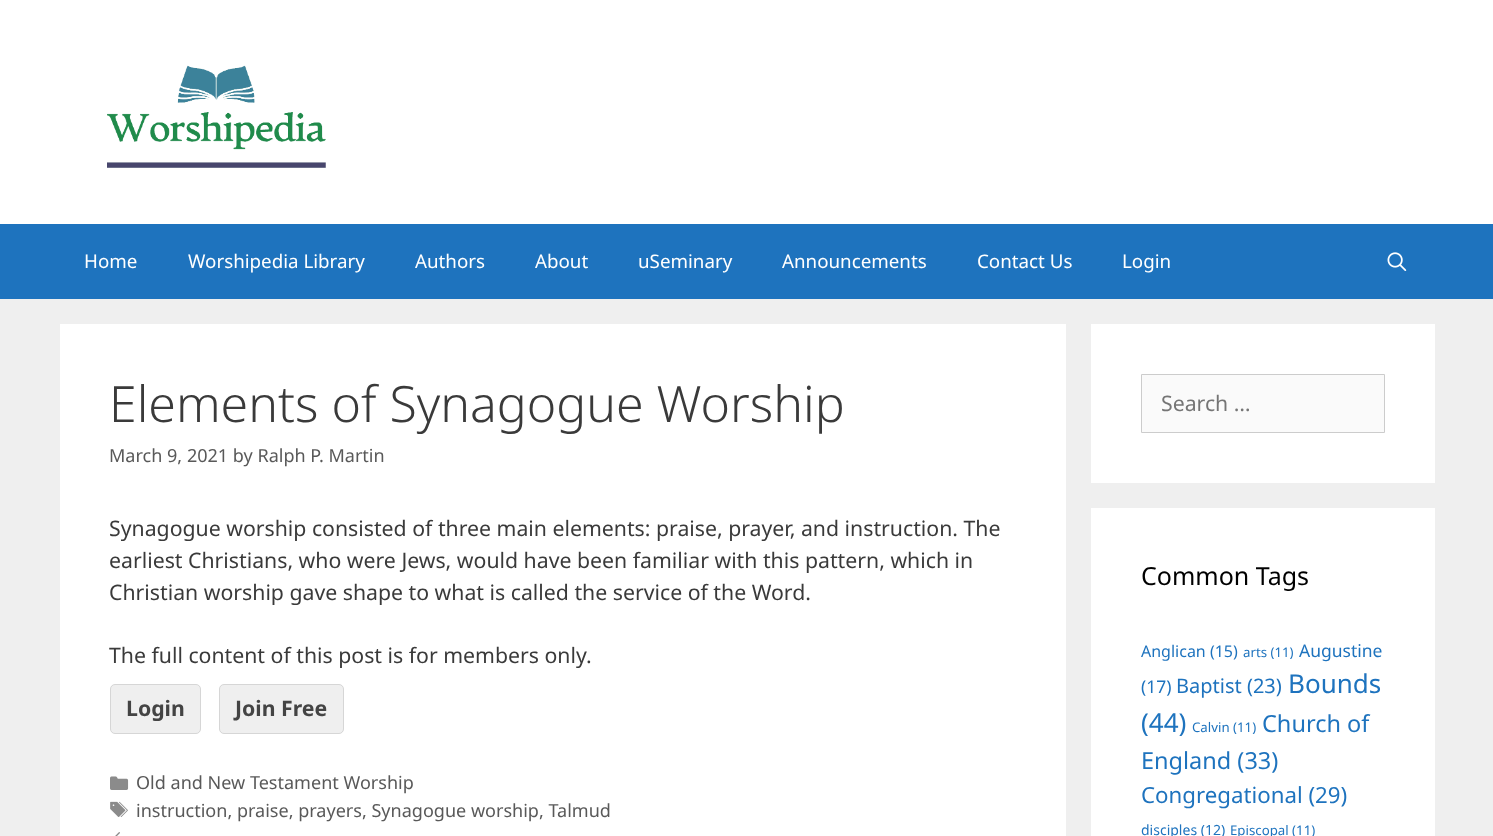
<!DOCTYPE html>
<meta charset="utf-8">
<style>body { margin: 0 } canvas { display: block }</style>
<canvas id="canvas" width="1493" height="836"></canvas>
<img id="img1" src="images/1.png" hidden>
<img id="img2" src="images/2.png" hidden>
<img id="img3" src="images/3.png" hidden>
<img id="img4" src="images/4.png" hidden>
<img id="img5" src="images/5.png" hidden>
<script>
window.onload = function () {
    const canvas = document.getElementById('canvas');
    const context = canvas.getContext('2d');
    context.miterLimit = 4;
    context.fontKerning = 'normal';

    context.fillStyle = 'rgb(239, 239, 239)';
    context.fillRect(0, 0, 1493, 836);
    context.fillStyle = 'rgb(255, 255, 255)';
    context.fillRect(0, 0, 1493, 224);
    context.drawImage(document.getElementById('img1'), 107, 65, 219, 103);
    context.fillStyle = 'rgb(30, 115, 190)';
    context.fillRect(0, 224, 1493, 75);
    context.drawImage(document.getElementById('img2'), 1387, 252, 20, 19);
    context.fillStyle = 'rgb(255, 255, 255)';
    context.fillRect(60, 324, 1006, 512);
    context.fillStyle = 'rgb(239, 239, 239)';
    context.beginPath();
    context.roundRect(110.5, 684.5, 90, 49, 4.5);
    context.fill();
    context.strokeStyle = 'rgb(214, 214, 214)';
    context.stroke();
    context.beginPath();
    context.roundRect(219.5, 684.5, 124, 49, 4.5);
    context.fill();
    context.stroke();
    context.drawImage(document.getElementById('img3'), 110, 776, 19, 14);
    context.drawImage(document.getElementById('img4'), 110, 801, 18, 16);
    context.drawImage(document.getElementById('img5'), 115, 832, 5, 4);
    context.fillStyle = 'rgb(255, 255, 255)';
    context.fillRect(1091, 324, 344, 159);
    context.fillStyle = 'rgb(250, 250, 250)';
    context.beginPath();
    context.rect(1141.5, 374.5, 243, 58);
    context.fill();
    context.strokeStyle = 'rgb(204, 204, 204)';
    context.stroke();
    context.fillStyle = 'rgb(255, 255, 255)';
    context.fillRect(1091, 508, 344, 328);
    context.font = '18.75px Noto Sans';
    context.fillText('Home', 84, 268);
    context.fillText('Worshipedia Library', 188, 268);
    context.fillText('Authors', 415, 268);
    context.fillText('About', 535, 268);
    context.fillText('uSeminary', 638, 268);
    context.fillText('Announcements', 782, 268);
    context.fillText('Contact Us', 977, 268);
    context.fillText('Login', 1122, 268);
    context.font = '300 50px Noto Sans';
    context.fillStyle = 'rgb(58, 58, 58)';
    context.fillText('Elements of Synagogue Worship', 109, 422);
    context.font = '18.05px Noto Sans';
    context.fillStyle = 'rgb(89, 89, 89)';
    context.fillText('March 9, 2021 by Ralph P. Martin', 109, 462);
    context.font = '21.25px Noto Sans';
    context.fillStyle = 'rgb(58, 58, 58)';
    context.fillText('Synagogue worship consisted of three main elements: praise, prayer, and instruction. The', 109, 536);
    context.fillText('earliest Christians, who were Jews, would have been familiar with this pattern, which in', 109, 568);
    context.fillText('Christian worship gave shape to what is called the service of the Word.', 109, 600);
    context.fillText('The full content of this post is for members only.', 109, 663);
    context.font = 'bold 21.25px Noto Sans';
    context.fillStyle = 'rgb(68, 68, 68)';
    context.fillText('Login', 126, 716);
    context.fillText('Join Free', 235, 716);
    context.font = '18.05px Noto Sans';
    context.fillStyle = 'rgb(89, 89, 89)';
    context.fillText('Old and New Testament Worship', 136, 789);
    context.fillText('instruction, praise, prayers, Synagogue worship, Talmud', 136, 817);
    context.font = '21.25px Noto Sans';
    context.fillStyle = 'rgb(117, 117, 117)';
    context.fillText('Search …', 1161, 411);
    context.font = '25px Noto Sans';
    context.fillStyle = 'rgb(0, 0, 0)';
    context.fillText('Common Tags', 1141, 585);
    context.font = '16px Noto Sans';
    context.fillStyle = 'rgb(30, 115, 190)';
    context.fillText('Anglican (15)', 1141, 657);
    context.font = '13.25px Noto Sans';
    context.fillText('arts (11)', 1243, 657);
    context.font = '17.5px Noto Sans';
    context.fillText('Augustine', 1299, 657);
    context.fillText('(17)', 1141, 693);
    context.font = '20px Noto Sans';
    context.fillText('Baptist (23)', 1176, 693);
    context.font = '26px Noto Sans';
    context.fillText('Bounds', 1288, 693);
    context.fillText('(44)', 1141, 732);
    context.font = '13.25px Noto Sans';
    context.fillText('Calvin (11)', 1192, 732);
    context.font = '23.5px Noto Sans';
    context.fillText('Church of', 1262, 732);
    context.fillText('England (33)', 1141, 769);
    context.font = '22.25px Noto Sans';
    context.fillText('Congregational (29)', 1141, 803);
    context.font = '14px Noto Sans';
    context.fillText('disciples (12)', 1141, 835);
    context.font = '13.25px Noto Sans';
    context.fillText('Episcopal (11)', 1230, 835);
};
</script>
